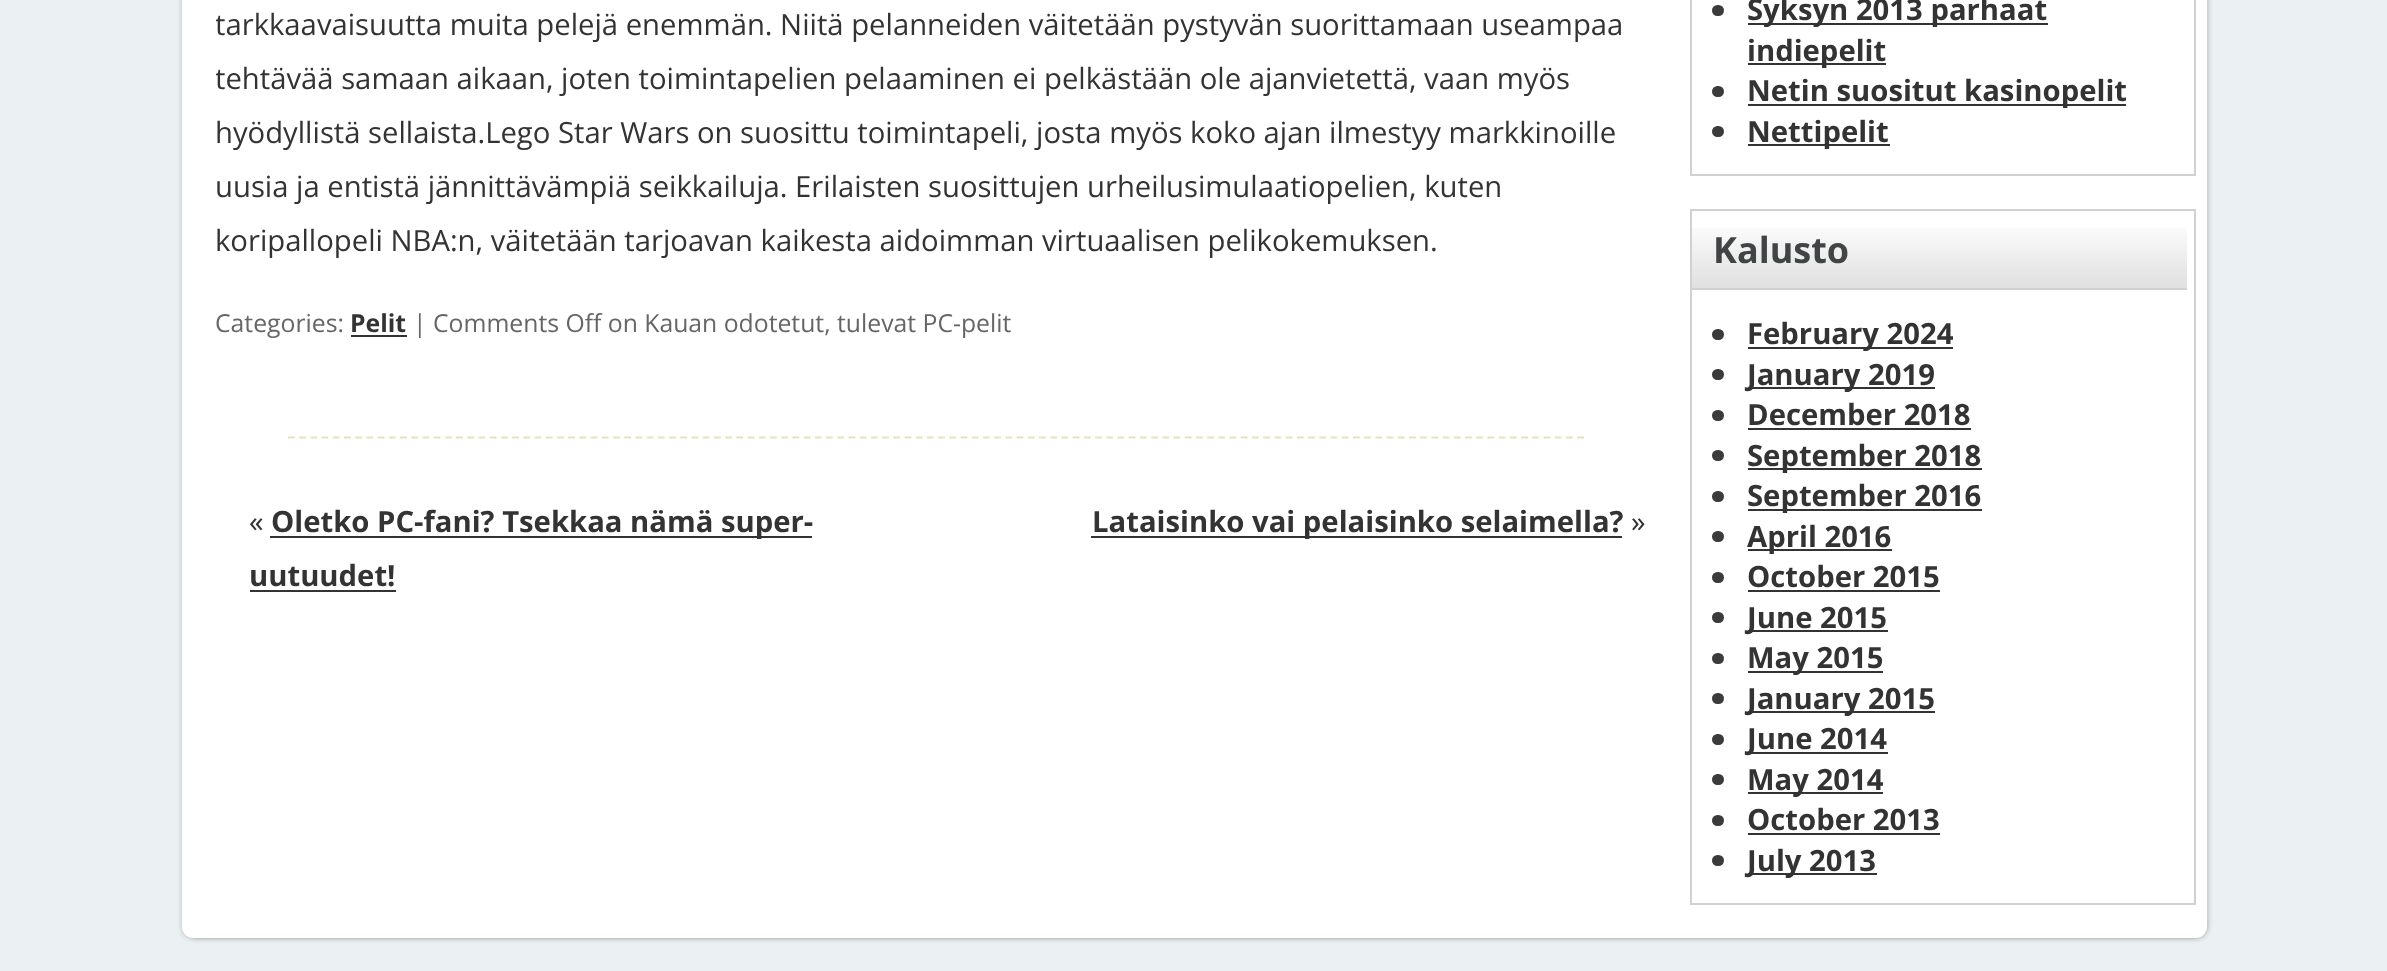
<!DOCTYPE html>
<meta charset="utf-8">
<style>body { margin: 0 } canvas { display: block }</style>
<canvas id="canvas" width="2387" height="971"></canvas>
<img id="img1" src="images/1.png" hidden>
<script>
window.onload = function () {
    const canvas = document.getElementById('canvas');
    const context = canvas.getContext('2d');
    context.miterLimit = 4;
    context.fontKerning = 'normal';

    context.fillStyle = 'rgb(235, 240, 243)';
    context.fillRect(0, 0, 2387, 971);
    context.fillStyle = 'rgba(0, 0, 0, 0.7)';
    context.filter = 'blur(3.5px)';
    context.beginPath();
    context.roundRect(185, -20, 2020, 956, 9);
    context.fill();
    context.filter = 'none';
    context.fillStyle = 'rgba(255, 255, 255, 0.6)';
    context.filter = 'blur(1px)';
    context.beginPath();
    context.roundRect(182, -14, 2025, 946, 11);
    context.fill();
    context.filter = 'none';
    context.fillStyle = 'rgb(255, 255, 255)';
    context.beginPath();
    context.roundRect(182, -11, 2025, 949, 11);
    context.fill();
    context.fillStyle = 'rgb(51, 51, 51)';
    context.fillRect(351, 335, 56, 2);
    context.beginPath();
    context.moveTo(288, 437.5);
    context.lineTo(1584, 437.5);
    context.strokeStyle = 'rgb(230, 225, 191)';
    context.lineWidth = 2.2;
    context.setLineDash([6.75, 4.46]);
    context.stroke();
    context.fillRect(270, 536, 542, 2);
    context.fillRect(250, 590, 146, 2);
    context.fillRect(1091, 536, 531, 2);
    context.strokeStyle = 'rgb(209, 209, 209)';
    context.lineWidth = 2;
    context.setLineDash([]);
    context.strokeRect(1691, -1, 504, 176);
    context.fillStyle = 'rgb(59, 59, 59)';
    context.beginPath();
    context.roundRect(1712, 5, 12, 11, 5.5);
    context.fill();
    context.fillStyle = 'rgb(51, 51, 51)';
    context.fillRect(1748, 23, 300, 2);
    context.fillRect(1748, 63, 138, 2);
    context.fillStyle = 'rgb(59, 59, 59)';
    context.beginPath();
    context.roundRect(1712, 86, 12, 11, 5.5);
    context.fill();
    context.fillStyle = 'rgb(51, 51, 51)';
    context.fillRect(1748, 104, 378, 2);
    context.fillStyle = 'rgb(59, 59, 59)';
    context.beginPath();
    context.roundRect(1712, 126, 12, 11, 5.5);
    context.fill();
    context.fillStyle = 'rgb(51, 51, 51)';
    context.fillRect(1748, 144, 142, 2);
    context.strokeRect(1691, 210, 504, 694);
    context.drawImage(document.getElementById('img1'), 1692, 228, 495, 60);
    context.fillStyle = 'rgb(209, 209, 209)';
    context.fillRect(1692, 288, 495, 2);
    context.fillStyle = 'rgb(59, 59, 59)';
    context.beginPath();
    context.roundRect(1712, 329, 12, 11, 5.5);
    context.fill();
    context.fillStyle = 'rgb(51, 51, 51)';
    context.fillRect(1748, 347, 205, 2);
    context.fillStyle = 'rgb(59, 59, 59)';
    context.beginPath();
    context.roundRect(1712, 369, 12, 11, 5.5);
    context.fill();
    context.fillStyle = 'rgb(51, 51, 51)';
    context.fillRect(1748, 387, 187, 2);
    context.fillStyle = 'rgb(59, 59, 59)';
    context.beginPath();
    context.roundRect(1712, 410, 12, 11, 5.5);
    context.fill();
    context.fillStyle = 'rgb(51, 51, 51)';
    context.fillRect(1748, 428, 223, 2);
    context.fillStyle = 'rgb(59, 59, 59)';
    context.beginPath();
    context.roundRect(1712, 450, 12, 11, 5.5);
    context.fill();
    context.fillStyle = 'rgb(51, 51, 51)';
    context.fillRect(1748, 468, 234, 2);
    context.fillStyle = 'rgb(59, 59, 59)';
    context.beginPath();
    context.roundRect(1712, 491, 12, 11, 5.5);
    context.fill();
    context.fillStyle = 'rgb(51, 51, 51)';
    context.fillRect(1748, 509, 234, 2);
    context.fillStyle = 'rgb(59, 59, 59)';
    context.beginPath();
    context.roundRect(1712, 531, 12, 11, 5.5);
    context.fill();
    context.fillStyle = 'rgb(51, 51, 51)';
    context.fillRect(1748, 549, 144, 2);
    context.fillStyle = 'rgb(59, 59, 59)';
    context.beginPath();
    context.roundRect(1712, 572, 12, 11, 5.5);
    context.fill();
    context.fillStyle = 'rgb(51, 51, 51)';
    context.fillRect(1748, 590, 192, 2);
    context.fillStyle = 'rgb(59, 59, 59)';
    context.beginPath();
    context.roundRect(1712, 612, 12, 11, 5.5);
    context.fill();
    context.fillStyle = 'rgb(51, 51, 51)';
    context.fillRect(1748, 630, 140, 2);
    context.fillStyle = 'rgb(59, 59, 59)';
    context.beginPath();
    context.roundRect(1712, 653, 12, 11, 5.5);
    context.fill();
    context.fillStyle = 'rgb(51, 51, 51)';
    context.fillRect(1748, 671, 135, 2);
    context.fillStyle = 'rgb(59, 59, 59)';
    context.beginPath();
    context.roundRect(1712, 693, 12, 11, 5.5);
    context.fill();
    context.fillStyle = 'rgb(51, 51, 51)';
    context.fillRect(1748, 711, 187, 2);
    context.fillStyle = 'rgb(59, 59, 59)';
    context.beginPath();
    context.roundRect(1712, 734, 12, 11, 5.5);
    context.fill();
    context.fillStyle = 'rgb(51, 51, 51)';
    context.fillRect(1748, 752, 140, 2);
    context.fillStyle = 'rgb(59, 59, 59)';
    context.beginPath();
    context.roundRect(1712, 774, 12, 11, 5.5);
    context.fill();
    context.fillStyle = 'rgb(51, 51, 51)';
    context.fillRect(1748, 792, 135, 2);
    context.fillStyle = 'rgb(59, 59, 59)';
    context.beginPath();
    context.roundRect(1712, 815, 12, 11, 5.5);
    context.fill();
    context.fillStyle = 'rgb(51, 51, 51)';
    context.fillRect(1748, 833, 192, 2);
    context.fillStyle = 'rgb(59, 59, 59)';
    context.beginPath();
    context.roundRect(1712, 855, 12, 11, 5.5);
    context.fill();
    context.fillStyle = 'rgb(51, 51, 51)';
    context.fillRect(1748, 873, 129, 2);
    context.save();
    context.beginPath();
    context.rect(216, 0, 1440, 376);
    context.clip();
    context.font = '29.25px Open Sans';
    context.fillText('tarkkaavaisuutta muita pelejä enemmän. Niitä pelanneiden väitetään pystyvän suorittamaan useampaa', 215, 35);
    context.fillText('tehtävää samaan aikaan, joten toimintapelien pelaaminen ei pelkästään ole ajanvietettä, vaan myös', 215, 89);
    context.restore();
    context.font = '29.25px Open Sans';
    context.fillText('hyödyllistä sellaista.Lego Star Wars on suosittu toimintapeli, josta myös koko ajan ilmestyy markkinoille', 215, 143);
    context.fillText('uusia ja entistä jännittävämpiä seikkailuja. Erilaisten suosittujen urheilusimulaatiopelien, kuten', 215, 197);
    context.fillText('koripallopeli NBA:n, väitetään tarjoavan kaikesta aidoimman virtuaalisen pelikokemuksen.', 215, 251);
    context.font = '24.75px Open Sans';
    context.fillStyle = 'rgb(102, 102, 102)';
    context.fillText('Categories:', 215, 332);
    context.font = 'bold 24.75px Open Sans';
    context.fillStyle = 'rgb(51, 51, 51)';
    context.fillText('Pelit', 350, 332);
    context.font = '24.75px Open Sans';
    context.fillStyle = 'rgb(102, 102, 102)';
    context.fillText('| Comments Off on Kauan odotetut, tulevat PC-pelit', 413, 332);
    context.font = '29.25px Open Sans';
    context.fillStyle = 'rgb(51, 51, 51)';
    context.fillText('«', 249, 532);
    context.font = 'bold 29.25px Open Sans';
    context.fillText('Oletko PC-fani? Tsekkaa nämä super-', 271, 532);
    context.fillText('uutuudet!', 249, 586);
    context.fillText('Lataisinko vai pelaisinko selaimella?', 1092, 532);
    context.font = '29.25px Open Sans';
    context.fillText('»', 1631, 532);
    context.font = 'bold 29.25px Open Sans';
    context.fillText('Syksyn 2013 parhaat', 1747, 20);
    context.fillText('indiepelit', 1747, 61);
    context.fillText('Netin suositut kasinopelit', 1747, 101);
    context.fillText('Nettipelit', 1747, 142);
    context.font = 'bold 36px Open Sans';
    context.fillStyle = 'rgb(65, 68, 69)';
    context.fillText('Kalusto', 1713, 263);
    context.font = 'bold 29.25px Open Sans';
    context.fillStyle = 'rgb(51, 51, 51)';
    context.fillText('February 2024', 1747, 344);
    context.fillText('January 2019', 1747, 385);
    context.fillText('December 2018', 1747, 425);
    context.fillText('September 2018', 1747, 466);
    context.fillText('September 2016', 1747, 506);
    context.fillText('April 2016', 1747, 547);
    context.fillText('October 2015', 1747, 587);
    context.fillText('June 2015', 1747, 628);
    context.fillText('May 2015', 1747, 668);
    context.fillText('January 2015', 1747, 709);
    context.fillText('June 2014', 1747, 749);
    context.fillText('May 2014', 1747, 790);
    context.fillText('October 2013', 1747, 830);
    context.fillText('July 2013', 1747, 871);
};
</script>
